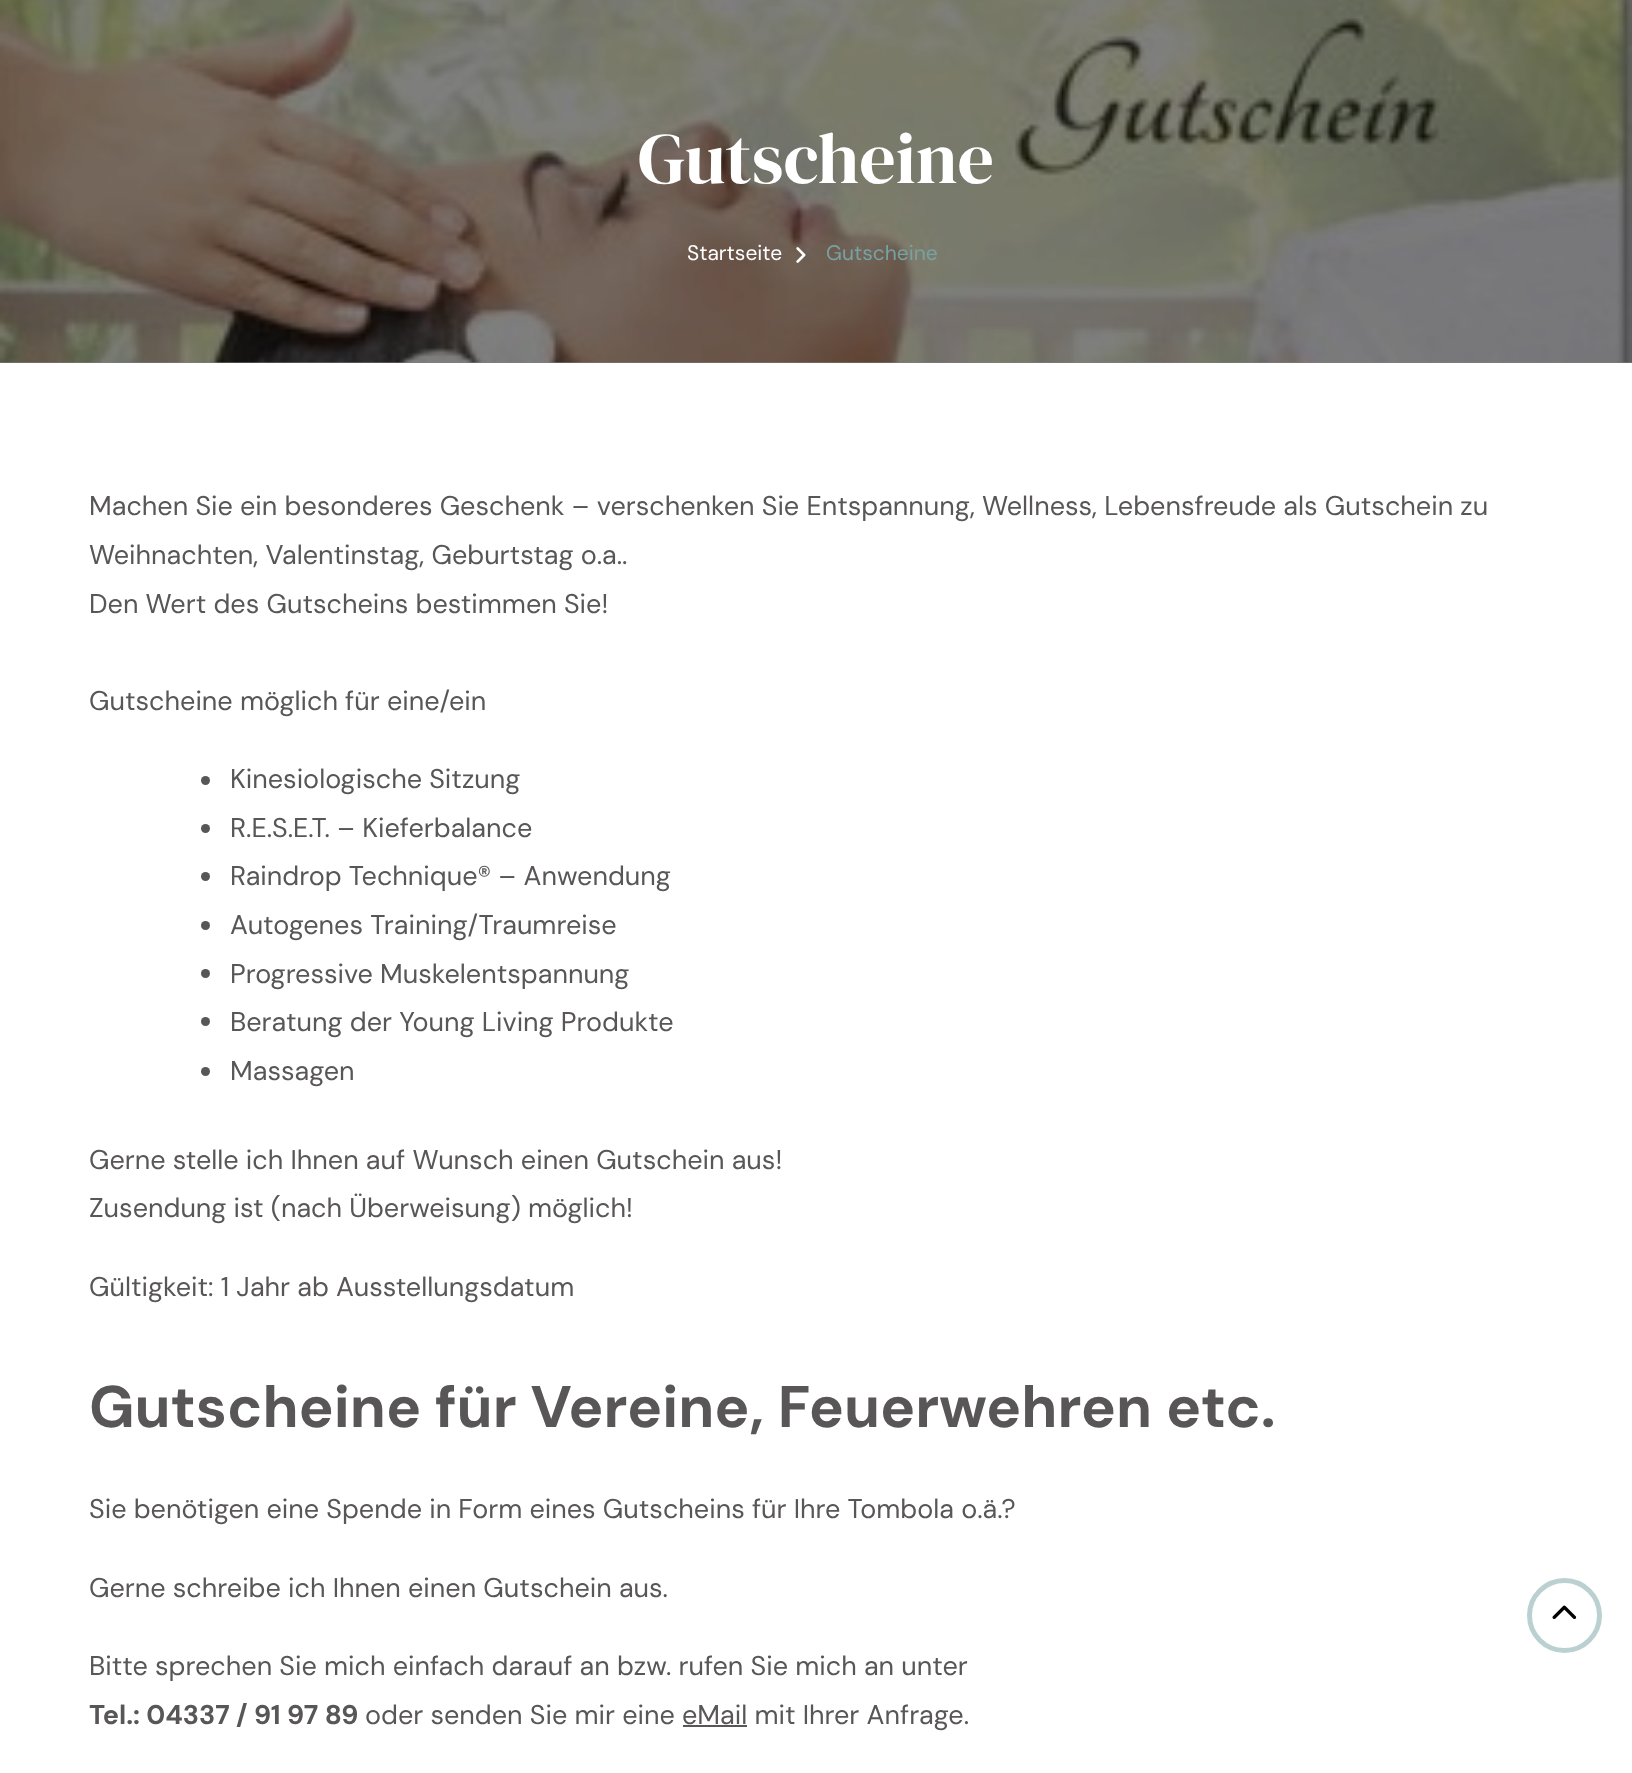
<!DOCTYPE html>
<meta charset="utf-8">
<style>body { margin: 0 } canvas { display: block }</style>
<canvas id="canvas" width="1632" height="1773"></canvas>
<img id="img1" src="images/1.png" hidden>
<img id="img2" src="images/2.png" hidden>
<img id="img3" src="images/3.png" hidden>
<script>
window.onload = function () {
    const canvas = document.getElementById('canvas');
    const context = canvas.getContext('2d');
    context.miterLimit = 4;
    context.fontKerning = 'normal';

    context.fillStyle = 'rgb(255, 255, 255)';
    context.fillRect(0, 0, 1632, 1773);
    context.fillStyle = 'rgb(128, 128, 128)';
    context.fillRect(0, 362, 1632, 1);
    context.drawImage(document.getElementById('img1'), 0, 0, 1632, 363);
    context.drawImage(document.getElementById('img2'), 796, 247, 10, 16);
    context.fillStyle = 'rgb(88, 86, 86)';
    context.beginPath();
    context.arc(205.5, 780.5, 4.5, 0, 2 * Math.PI);
    context.fill();
    context.beginPath();
    context.arc(205.5, 828.5, 4.5, 0, 2 * Math.PI);
    context.fill();
    context.beginPath();
    context.arc(205.5, 876.5, 4.5, 0, 2 * Math.PI);
    context.fill();
    context.beginPath();
    context.arc(205.5, 925.5, 4.5, 0, 2 * Math.PI);
    context.fill();
    context.beginPath();
    context.arc(205.5, 973.5, 4.5, 0, 2 * Math.PI);
    context.fill();
    context.beginPath();
    context.arc(205.5, 1021.5, 4.5, 0, 2 * Math.PI);
    context.fill();
    context.beginPath();
    context.arc(205.5, 1071.5, 4.5, 0, 2 * Math.PI);
    context.fill();
    context.fillRect(683, 1725, 64, 2);
    context.beginPath();
    context.arc(1564.5, 1615.5, 35, 0, 2 * Math.PI);
    context.strokeStyle = 'rgb(187, 209, 209)';
    context.lineWidth = 5;
    context.stroke();
    context.drawImage(document.getElementById('img3'), 1552, 1605, 25, 14);
    context.font = '72px DM Serif Display';
    context.fillStyle = 'rgb(255, 255, 255)';
    context.fillText('Gutscheine', 638, 183);
    context.font = '21px DM Sans';
    context.fillText('Startseite', 687, 260);
    context.fillStyle = 'rgb(118, 162, 162)';
    context.fillText('Gutscheine', 826, 260);
    context.font = '27px DM Sans';
    context.fillStyle = 'rgb(88, 86, 86)';
    context.fillText('Machen Sie ein besonderes Geschenk – verschenken Sie Entspannung, Wellness, Lebensfreude als Gutschein zu', 89, 515);
    context.fillText('Weihnachten, Valentinstag, Geburtstag o.a..', 89, 564);
    context.fillText('Den Wert des Gutscheins bestimmen Sie!', 89, 613);
    context.fillText('Gutscheine möglich für eine/ein', 89, 710);
    context.fillText('Kinesiologische Sitzung', 230, 788);
    context.fillText('R.E.S.E.T. – Kieferbalance', 230, 837);
    context.fillText('Raindrop Technique® – Anwendung', 230, 885);
    context.fillText('Autogenes Training/Traumreise', 230, 934);
    context.fillText('Progressive Muskelentspannung', 230, 983);
    context.fillText('Beratung der Young Living Produkte', 230, 1031);
    context.fillText('Massagen', 230, 1080);
    context.fillText('Gerne stelle ich Ihnen auf Wunsch einen Gutschein aus!', 89, 1169);
    context.fillText('Zusendung ist (nach Überweisung) möglich!', 89, 1217);
    context.fillText('Gültigkeit: 1 Jahr ab Ausstellungsdatum', 89, 1296);
    context.font = 'bold 58.5px DM Sans';
    context.fillText('Gutscheine für Vereine, Feuerwehren etc.', 89, 1427);
    context.font = '27px DM Sans';
    context.fillText('Sie benötigen eine Spende in Form eines Gutscheins für Ihre Tombola o.ä.?', 89, 1518);
    context.fillText('Gerne schreibe ich Ihnen einen Gutschein aus.', 89, 1597);
    context.fillText('Bitte sprechen Sie mich einfach darauf an bzw. rufen Sie mich an unter', 89, 1675);
    context.font = 'bold 27px DM Sans';
    context.fillText('Tel.: 04337 / 91 97 89', 89, 1724);
    context.font = '27px DM Sans';
    context.fillText('oder senden Sie mir eine eMail mit Ihrer Anfrage.', 365, 1724);
};
</script>
